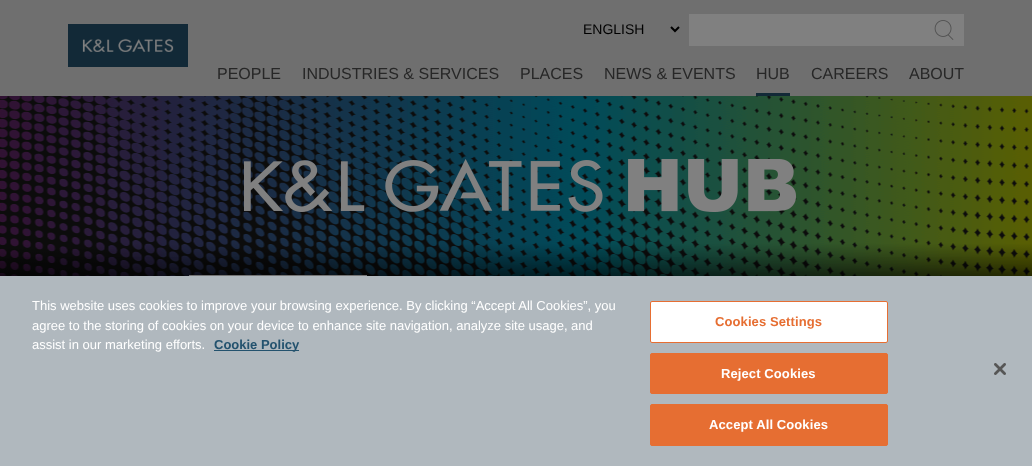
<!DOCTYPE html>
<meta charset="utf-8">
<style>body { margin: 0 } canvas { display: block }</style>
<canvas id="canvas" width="1032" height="466"></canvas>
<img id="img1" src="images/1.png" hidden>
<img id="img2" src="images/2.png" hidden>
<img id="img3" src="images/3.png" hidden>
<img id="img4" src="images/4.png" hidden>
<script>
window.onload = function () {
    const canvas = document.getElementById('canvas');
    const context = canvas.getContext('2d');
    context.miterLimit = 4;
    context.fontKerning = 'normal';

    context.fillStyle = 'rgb(255, 255, 255)';
    context.fillRect(0, 0, 1032, 466);
    context.fillStyle = 'rgb(111, 111, 111)';
    context.fillRect(0, 0, 1032, 96);
    context.fillStyle = 'rgb(18, 41, 55)';
    context.fillRect(68, 24, 120, 43);
    context.drawImage(document.getElementById('img1'), 82, 38, 92, 14);
    context.beginPath();
    context.moveTo(671, 27);
    context.lineTo(675, 31);
    context.lineTo(679, 27);
    context.strokeStyle = 'rgb(0, 0, 0)';
    context.lineWidth = 2;
    context.stroke();
    context.fillStyle = 'rgb(128, 128, 128)';
    context.fillRect(689, 14, 275, 32);
    context.drawImage(document.getElementById('img2'), 934, 20, 20, 20);
    context.fillStyle = 'rgb(18, 41, 55)';
    context.fillRect(756, 93, 34, 3);
    context.drawImage(document.getElementById('img3'), 0, 96, 1032, 180);
    context.fillStyle = 'rgb(128, 128, 128)';
    context.fillRect(189, 275, 178, 1);
    context.fillStyle = 'rgba(0, 0, 0, 0.2)';
    context.filter = 'blur(9px)';
    context.beginPath();
    context.rect(0, 276, 1032, 190);
    context.fill();
    context.filter = 'none';
    context.fillStyle = 'rgb(176, 184, 190)';
    context.fillRect(0, 276, 1032, 190);
    context.fillStyle = 'rgb(35, 82, 110)';
    context.fillRect(214, 350, 85, 1);
    context.fillStyle = 'rgb(255, 255, 255)';
    context.beginPath();
    context.roundRect(650.5, 301.5, 237, 41, 1.5);
    context.fill();
    context.strokeStyle = 'rgb(230, 110, 50)';
    context.lineWidth = 1;
    context.stroke();
    context.fillStyle = 'rgb(230, 110, 50)';
    context.beginPath();
    context.roundRect(650.5, 353.5, 237, 40, 1.5);
    context.fill();
    context.stroke();
    context.beginPath();
    context.roundRect(650.5, 404.5, 237, 41, 1.5);
    context.fill();
    context.stroke();
    context.drawImage(document.getElementById('img4'), 994, 363, 12, 12);
    context.font = '14px Liberation Sans';
    context.fillStyle = 'rgb(0, 0, 0)';
    context.fillText('ENGLISH', 583, 34);
    context.font = '16px Liberation Sans';
    context.fillStyle = 'rgb(39, 39, 39)';
    context.fillText('PEOPLE', 217, 79);
    context.fillText('INDUSTRIES & SERVICES', 302, 79);
    context.fillText('PLACES', 520, 79);
    context.fillText('NEWS & EVENTS', 604, 79);
    context.fillText('HUB', 756, 79);
    context.fillText('CAREERS', 811, 79);
    context.fillText('ABOUT', 909, 79);
    context.font = '13px Liberation Sans';
    context.fillStyle = 'rgb(255, 255, 255)';
    context.fillText('This website uses cookies to improve your browsing experience. By clicking “Accept All Cookies”, you', 32, 310);
    context.fillText('agree to the storing of cookies on your device to enhance site navigation, analyze site usage, and', 32, 330);
    context.fillText('assist in our marketing efforts.', 32, 349);
    context.font = 'bold 13px Liberation Sans';
    context.fillStyle = 'rgb(35, 82, 110)';
    context.fillText('Cookie Policy', 214, 349);
    context.letterSpacing = '0.1px';
    context.fillStyle = 'rgb(230, 110, 50)';
    context.fillText('Cookies Settings', 715, 326);
    context.fillStyle = 'rgb(255, 255, 255)';
    context.fillText('Reject Cookies', 721, 378);
    context.fillText('Accept All Cookies', 709, 429);
};
</script>
